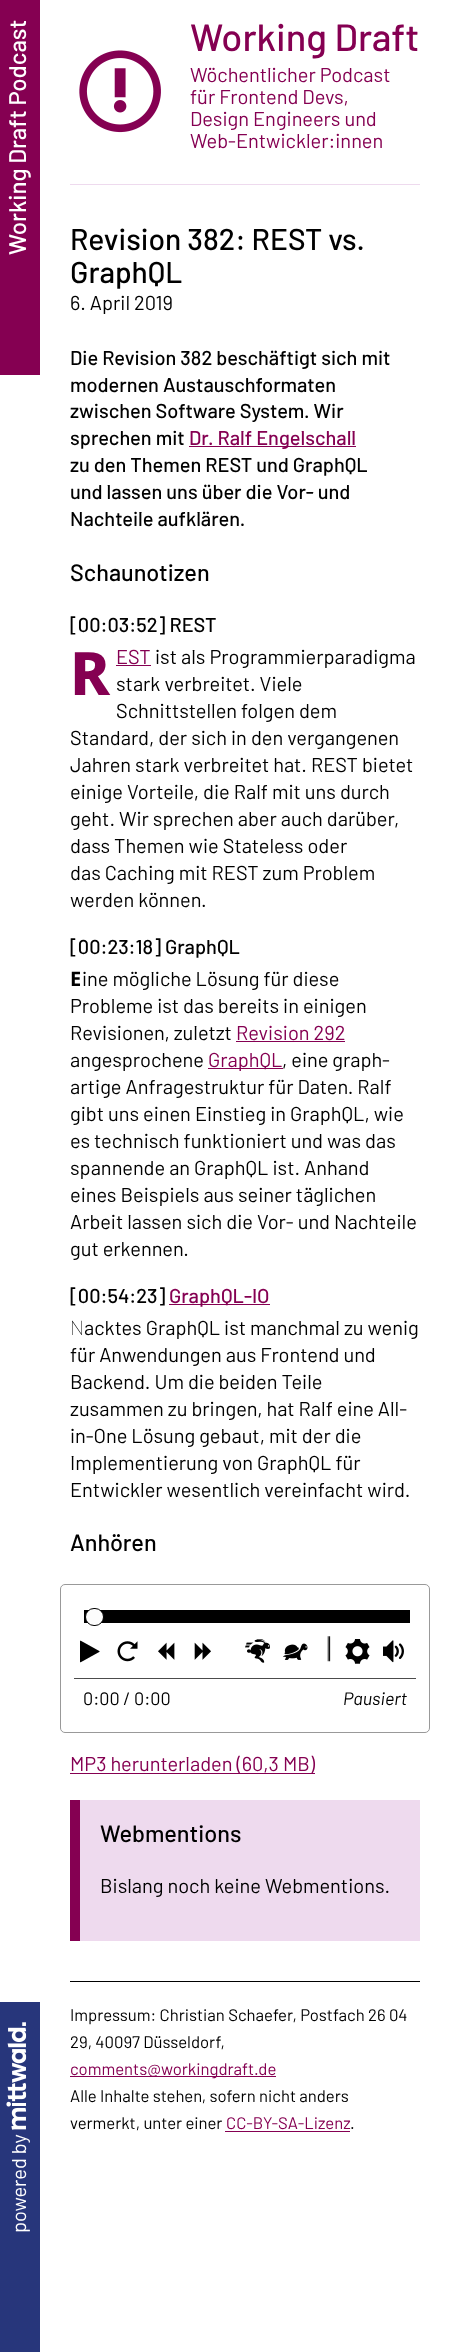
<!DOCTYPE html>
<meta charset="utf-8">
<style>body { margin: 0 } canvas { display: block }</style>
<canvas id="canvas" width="468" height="2352"></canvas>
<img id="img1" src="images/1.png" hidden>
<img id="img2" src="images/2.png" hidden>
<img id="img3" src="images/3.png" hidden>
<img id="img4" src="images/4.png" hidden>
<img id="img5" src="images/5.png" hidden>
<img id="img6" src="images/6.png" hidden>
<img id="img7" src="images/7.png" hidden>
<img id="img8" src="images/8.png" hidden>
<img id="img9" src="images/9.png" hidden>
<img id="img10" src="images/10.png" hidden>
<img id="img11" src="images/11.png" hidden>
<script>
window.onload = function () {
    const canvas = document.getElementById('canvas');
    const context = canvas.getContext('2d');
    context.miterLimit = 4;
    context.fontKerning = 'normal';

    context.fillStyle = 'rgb(255, 255, 255)';
    context.fillRect(0, 0, 468, 2352);
    context.fillStyle = 'rgb(238, 218, 238)';
    context.fillRect(70, 184, 350, 1);
    context.fillStyle = 'rgb(133, 0, 82)';
    context.fillRect(0, 0, 40, 375);
    context.drawImage(document.getElementById('img1'), 79, 50, 82, 83);
    context.fillRect(189, 446, 167, 1);
    context.fillRect(116, 665, 35, 1);
    context.fillRect(236, 1041, 109, 1);
    context.fillRect(208, 1068, 75, 1);
    context.fillRect(169, 1304, 101, 1);
    context.beginPath();
    context.roundRect(60.5, 1584.5, 369, 148, 4.5);
    context.strokeStyle = 'rgb(153, 153, 153)';
    context.stroke();
    context.fillStyle = 'rgb(76, 76, 76)';
    context.fillRect(74, 1678, 342, 1);
    context.fillStyle = 'rgb(0, 0, 0)';
    context.fillRect(84, 1610, 326, 13);
    context.fillStyle = 'rgb(253, 253, 253)';
    context.beginPath();
    context.roundRect(85.5, 1608.5, 18, 17, 8.5);
    context.fill();
    context.strokeStyle = 'rgb(0, 0, 0)';
    context.stroke();
    context.drawImage(document.getElementById('img2'), 80, 1640, 20, 23);
    context.drawImage(document.getElementById('img3'), 117, 1641, 21, 21);
    context.drawImage(document.getElementById('img4'), 158, 1642, 17, 18);
    context.drawImage(document.getElementById('img5'), 194, 1642, 17, 18);
    context.drawImage(document.getElementById('img6'), 245, 1639, 25, 24);
    context.drawImage(document.getElementById('img7'), 283, 1643, 25, 17);
    context.drawImage(document.getElementById('img8'), 327, 1636, 4, 26);
    context.drawImage(document.getElementById('img9'), 345, 1639, 25, 25);
    context.drawImage(document.getElementById('img10'), 383, 1640, 21, 23);
    context.fillStyle = 'rgb(133, 0, 82)';
    context.fillRect(70, 1773, 245, 1);
    context.fillStyle = 'rgb(238, 218, 238)';
    context.fillRect(80, 1800, 340, 141);
    context.fillStyle = 'rgb(133, 0, 82)';
    context.fillRect(70, 1800, 10, 141);
    context.fillStyle = 'rgb(0, 0, 0)';
    context.fillRect(70, 1981, 350, 1);
    context.fillStyle = 'rgb(133, 0, 82)';
    context.fillRect(70, 2076, 206, 1);
    context.fillRect(225, 2131, 125, 1);
    context.fillStyle = 'rgb(39, 54, 123)';
    context.fillRect(0, 2002, 40, 350);
    context.drawImage(document.getElementById('img11'), 6, 2022, 21, 108);
    context.font = '500 24px Barlow';
    context.fillStyle = 'rgb(255, 255, 255)';
    context.save();
    context.translate(26, 255);
    context.rotate(-90 * Math.PI / 180);
    context.fillText('Working Draft Podcast', 0, 0);
    context.restore();
    context.font = '500 38px Barlow';
    context.fillStyle = 'rgb(133, 0, 82)';
    context.fillText('Working Draft', 190, 51);
    context.font = '20px Barlow';
    context.fillText('Wöchentlicher Podcast', 190, 82);
    context.fillText('für Frontend Devs,', 190, 104);
    context.fillText('Design Engineers und', 190, 126);
    context.fillText('Web-Entwickler:innen', 190, 148);
    context.font = '500 30px Barlow';
    context.fillStyle = 'rgb(0, 0, 0)';
    context.fillText('Revision 382: REST vs.', 70, 250);
    context.fillText('GraphQL', 70, 283);
    context.font = '20px Barlow';
    context.fillText('6. April 2019', 70, 310);
    context.font = '500 20px Barlow';
    context.fillText('Die Revision 382 beschäftigt sich mit', 70, 365);
    context.fillText('modernen Austauschformaten', 70, 392);
    context.fillText('zwischen Software System. Wir', 70, 418);
    context.fillText('sprechen mit', 70, 445);
    context.fillStyle = 'rgb(133, 0, 82)';
    context.fillText('Dr. Ralf Engelschall', 189, 445);
    context.fillStyle = 'rgb(0, 0, 0)';
    context.fillText('zu den Themen REST und GraphQL', 70, 472);
    context.fillText('und lassen uns über die Vor- und', 70, 499);
    context.fillText('Nachteile aufklären.', 70, 526);
    context.font = '500 23.5px Barlow';
    context.fillText('Schaunotizen', 70, 581);
    context.font = '500 20px Barlow';
    context.fillText('[00:03:52] REST', 70, 632);
    context.font = '800 60px Noto Sans';
    context.fillStyle = 'rgb(133, 0, 82)';
    context.fillText('R', 70, 695);
    context.font = '20px Barlow';
    context.fillText('EST', 116, 664);
    context.fillStyle = 'rgb(0, 0, 0)';
    context.fillText('ist als Programmierparadigma', 155, 664);
    context.fillText('stark verbreitet. Viele', 116, 691);
    context.fillText('Schnittstellen folgen dem', 116, 718);
    context.fillText('Standard, der sich in den vergangenen', 70, 745);
    context.fillText('Jahren stark verbreitet hat. REST bietet', 70, 772);
    context.fillText('einige Vorteile, die Ralf mit uns durch', 70, 799);
    context.fillText('geht. Wir sprechen aber auch darüber,', 70, 826);
    context.fillText('dass Themen wie Stateless oder', 70, 853);
    context.fillText('das Caching mit REST zum Problem', 70, 880);
    context.fillText('werden können.', 70, 907);
    context.font = '500 20px Barlow';
    context.fillText('[00:23:18] GraphQL', 70, 954);
    context.font = '20px Barlow';
    context.fillText('ine mögliche Lösung für diese', 82, 986);
    context.fillText('Probleme ist das bereits in einigen', 70, 1013);
    context.fillText('Revisionen, zuletzt', 70, 1040);
    context.fillStyle = 'rgb(133, 0, 82)';
    context.fillText('Revision 292', 236, 1040);
    context.fillStyle = 'rgb(0, 0, 0)';
    context.fillText('angesprochene', 70, 1067);
    context.fillStyle = 'rgb(133, 0, 82)';
    context.fillText('GraphQL', 208, 1067);
    context.fillStyle = 'rgb(0, 0, 0)';
    context.fillText(', eine graph-', 282, 1067);
    context.fillText('artige Anfragestruktur für Daten. Ralf', 70, 1094);
    context.fillText('gibt uns einen Einstieg in GraphQL, wie', 70, 1121);
    context.fillText('es technisch funktioniert und was das', 70, 1148);
    context.fillText('spannende an GraphQL ist. Anhand', 70, 1175);
    context.fillText('eines Beispiels aus seiner täglichen', 70, 1202);
    context.fillText('Arbeit lassen sich die Vor- und Nachteile', 70, 1229);
    context.fillText('gut erkennen.', 70, 1256);
    context.font = 'bold 20px Noto Sans';
    context.fillText('E', 70, 986);
    context.font = '500 20px Barlow';
    context.fillText('[00:54:23]', 70, 1303);
    context.fillStyle = 'rgb(133, 0, 82)';
    context.fillText('GraphQL-IO', 169, 1303);
    context.font = '20px Barlow';
    context.fillStyle = 'rgb(0, 0, 0)';
    context.fillText('acktes GraphQL ist manchmal zu wenig', 84, 1335);
    context.fillText('für Anwendungen aus Frontend und', 70, 1362);
    context.fillText('Backend. Um die beiden Teile', 70, 1389);
    context.fillText('zusammen zu bringen, hat Ralf eine All-', 70, 1416);
    context.fillText('in-One Lösung gebaut, mit der die', 70, 1443);
    context.fillText('Implementierung von GraphQL für', 70, 1470);
    context.fillText('Entwickler wesentlich vereinfacht wird.', 70, 1497);
    context.font = '100 20px Noto Sans';
    context.fillText('N', 70, 1335);
    context.font = '500 23.5px Barlow';
    context.fillText('Anhören', 70, 1551);
    context.font = '18px Barlow';
    context.fillText('0:00 / 0:00', 83, 1705);
    context.font = 'italic 18px Barlow';
    context.fillText('Pausiert', 343, 1705);
    context.font = '20px Barlow';
    context.fillStyle = 'rgb(133, 0, 82)';
    context.fillText('MP3 herunterladen (60,3 MB)', 70, 1771);
    context.font = '500 23.5px Barlow';
    context.fillStyle = 'rgb(0, 0, 0)';
    context.fillText('Webmentions', 100, 1842);
    context.font = '20px Barlow';
    context.fillText('Bislang noch keine Webmentions.', 100, 1893);
    context.font = '16.7px Barlow';
    context.fillText('Impressum: Christian Schaefer, Postfach 26 04', 70, 2021);
    context.fillText('29, 40097 Düsseldorf,', 70, 2048);
    context.fillStyle = 'rgb(133, 0, 82)';
    context.fillText('comments@workingdraft.de', 70, 2075);
    context.fillStyle = 'rgb(0, 0, 0)';
    context.fillText('Alle Inhalte stehen, sofern nicht anders', 70, 2102);
    context.fillText('vermerkt, unter einer', 70, 2129);
    context.fillStyle = 'rgb(133, 0, 82)';
    context.fillText('CC-BY-SA-Lizenz', 226, 2129);
    context.fillStyle = 'rgb(0, 0, 0)';
    context.fillText('.', 350, 2129);
    context.font = '20px Barlow';
    context.fillStyle = 'rgb(255, 255, 255)';
    context.save();
    context.translate(26, 2233);
    context.rotate(-90 * Math.PI / 180);
    context.fillText('powered by', 0, 0);
    context.restore();
};
</script>
